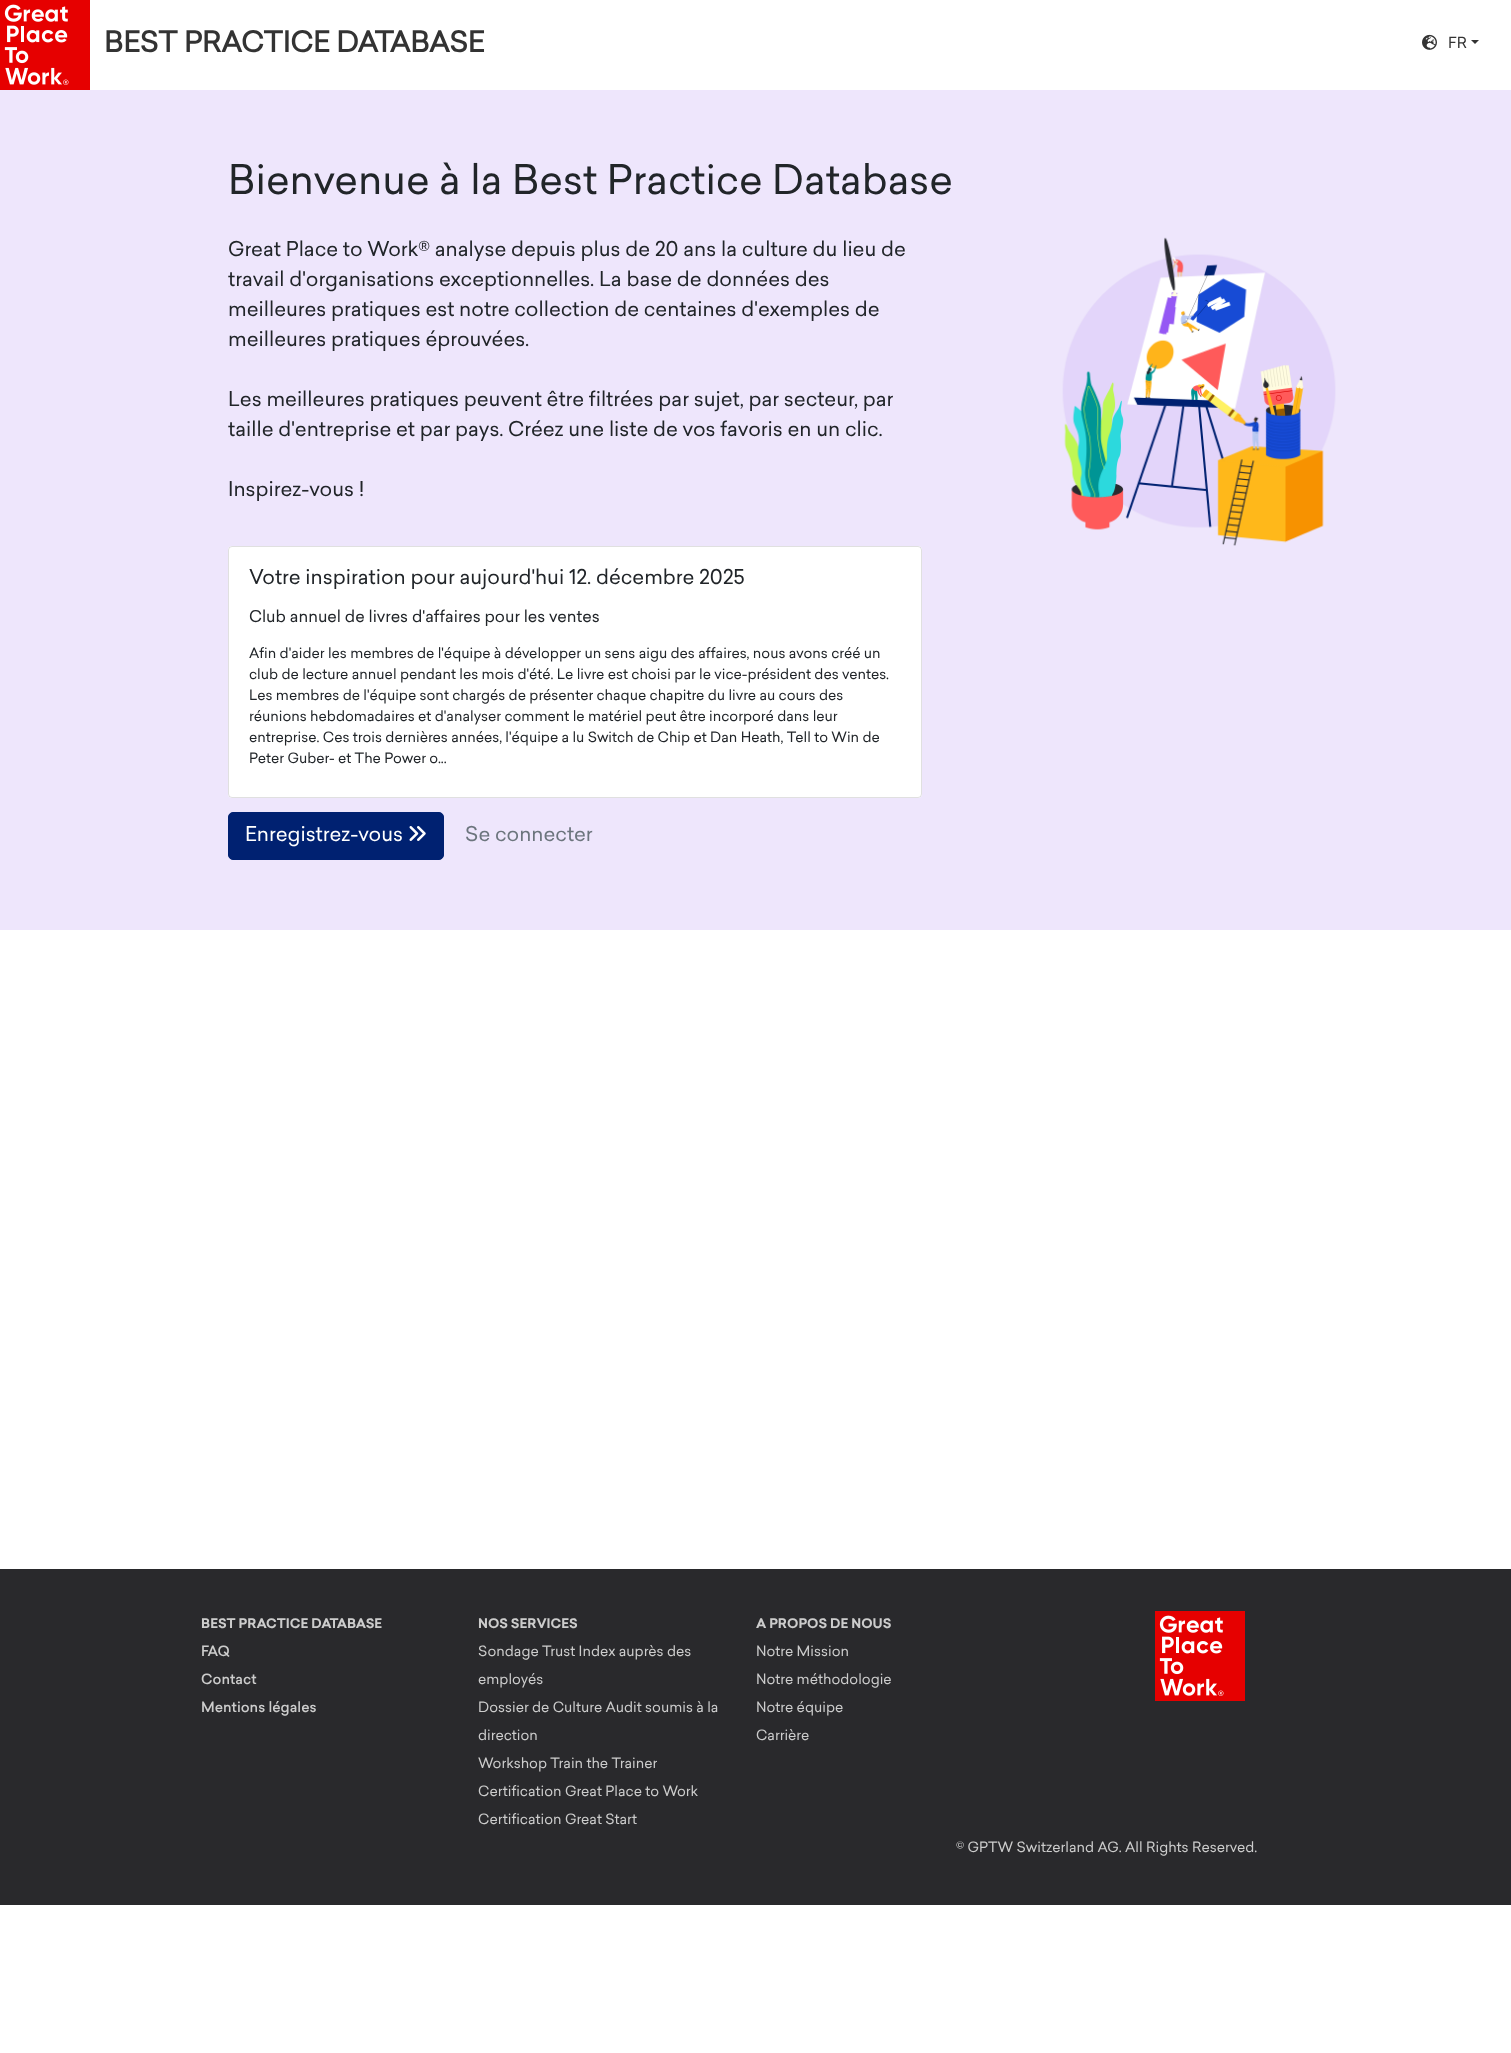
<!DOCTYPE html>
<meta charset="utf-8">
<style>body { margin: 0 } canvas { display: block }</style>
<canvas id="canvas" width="1511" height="2053"></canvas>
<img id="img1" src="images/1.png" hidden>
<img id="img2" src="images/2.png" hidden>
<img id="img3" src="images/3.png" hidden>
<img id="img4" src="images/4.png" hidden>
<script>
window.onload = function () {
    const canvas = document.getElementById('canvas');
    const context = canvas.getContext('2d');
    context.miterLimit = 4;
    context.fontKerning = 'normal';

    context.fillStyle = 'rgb(255, 255, 255)';
    context.fillRect(0, 0, 1511, 2053);
    context.drawImage(document.getElementById('img1'), 0, 0, 90, 90);
    context.drawImage(document.getElementById('img2'), 1422, 34, 15, 16);
    context.fillStyle = 'rgb(51, 51, 51)';
    context.beginPath();
    context.moveTo(1471, 40);
    context.lineTo(1479, 40);
    context.lineTo(1475, 44);
    context.closePath();
    context.fill();
    context.fillStyle = 'rgb(238, 230, 252)';
    context.fillRect(0, 90, 1511, 840);
    context.fillStyle = 'rgb(255, 255, 255)';
    context.beginPath();
    context.roundRect(228, 546, 694, 252, 4);
    context.fill();
    context.beginPath();
    context.roundRect(228.5, 546.5, 693, 251, 3.5);
    context.strokeStyle = 'rgba(0, 0, 0, 0.12)';
    context.stroke();
    context.fillStyle = 'rgb(0, 33, 113)';
    context.beginPath();
    context.roundRect(228.5, 812.5, 215, 47, 4.5);
    context.fill();
    context.strokeStyle = 'rgb(0, 33, 113)';
    context.stroke();
    context.drawImage(document.getElementById('img3'), 409, 826, 17, 15);
    context.drawImage(document.getElementById('img4'), 1062, 237, 274, 309);
    context.fillStyle = 'rgb(41, 41, 44)';
    context.fillRect(0, 1569, 1511, 336);
    context.drawImage(document.getElementById('img1'), 1155, 1611, 90, 90);
    context.font = 'bold 28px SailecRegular';
    context.fillStyle = 'rgb(51, 51, 51)';
    context.fillText('BEST PRACTICE DATABASE', 104, 52);
    context.font = '15px SailecRegular';
    context.fillText('FR', 1448, 48);
    context.font = '40px SailecRegular';
    context.fillStyle = 'rgb(33, 37, 41)';
    context.fillText('Bienvenue à la Best Practice Database', 228, 194);
    context.font = '20px SailecRegular';
    context.fillText('Great Place to Work® analyse depuis plus de 20 ans la culture du lieu de', 228, 256);
    context.fillText('travail d\'organisations exceptionnelles. La base de données des', 228, 286);
    context.fillText('meilleures pratiques est notre collection de centaines d\'exemples de', 228, 316);
    context.fillText('meilleures pratiques éprouvées.', 228, 346);
    context.fillText('Les meilleures pratiques peuvent être filtrées par sujet, par secteur, par', 228, 406);
    context.fillText('taille d\'entreprise et par pays. Créez une liste de vos favoris en un clic.', 228, 436);
    context.fillText('Inspirez-vous !', 228, 496);
    context.fillText('Votre inspiration pour aujourd\'hui 12. décembre 2025', 249, 584);
    context.font = '16px SailecRegular';
    context.fillText('Club annuel de livres d\'affaires pour les ventes', 249, 622);
    context.font = '14px SailecRegular';
    context.fillText('Afin d\'aider les membres de l\'équipe à développer un sens aigu des affaires, nous avons créé un', 249, 658);
    context.fillText('club de lecture annuel pendant les mois d\'été. Le livre est choisi par le vice-président des ventes.', 249, 679);
    context.fillText('Les membres de l\'équipe sont chargés de présenter chaque chapitre du livre au cours des', 249, 700);
    context.fillText('réunions hebdomadaires et d\'analyser comment le matériel peut être incorporé dans leur', 249, 721);
    context.fillText('entreprise. Ces trois dernières années, l\'équipe a lu Switch de Chip et Dan Heath, Tell to Win de', 249, 742);
    context.fillText('Peter Guber- et The Power o...', 249, 763);
    context.font = '20px SailecRegular';
    context.fillStyle = 'rgb(255, 255, 255)';
    context.fillText('Enregistrez-vous', 245, 841);
    context.fillStyle = 'rgb(108, 117, 125)';
    context.fillText('Se connecter', 465, 841);
    context.font = 'bold 13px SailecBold';
    context.fillStyle = 'rgb(204, 204, 204)';
    context.fillText('BEST PRACTICE DATABASE', 201, 1628);
    context.font = '500 14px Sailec';
    context.fillText('FAQ', 201, 1656);
    context.fillText('Contact', 201, 1684);
    context.fillText('Mentions légales', 201, 1712);
    context.font = 'bold 13px SailecBold';
    context.fillText('NOS SERVICES', 478, 1628);
    context.font = '14px SailecRegular';
    context.fillText('Sondage Trust Index auprès des', 478, 1656);
    context.fillText('employés', 478, 1684);
    context.fillText('Dossier de Culture Audit soumis à la', 478, 1712);
    context.fillText('direction', 478, 1740);
    context.fillText('Workshop Train the Trainer', 478, 1768);
    context.fillText('Certification Great Place to Work', 478, 1796);
    context.fillText('Certification Great Start', 478, 1824);
    context.font = 'bold 13px SailecBold';
    context.fillText('A PROPOS DE NOUS', 756, 1628);
    context.font = '14px SailecRegular';
    context.fillText('Notre Mission', 756, 1656);
    context.fillText('Notre méthodologie', 756, 1684);
    context.fillText('Notre équipe', 756, 1712);
    context.fillText('Carrière', 756, 1740);
    context.fillText('© GPTW Switzerland AG. All Rights Reserved.', 956, 1852);
};
</script>
